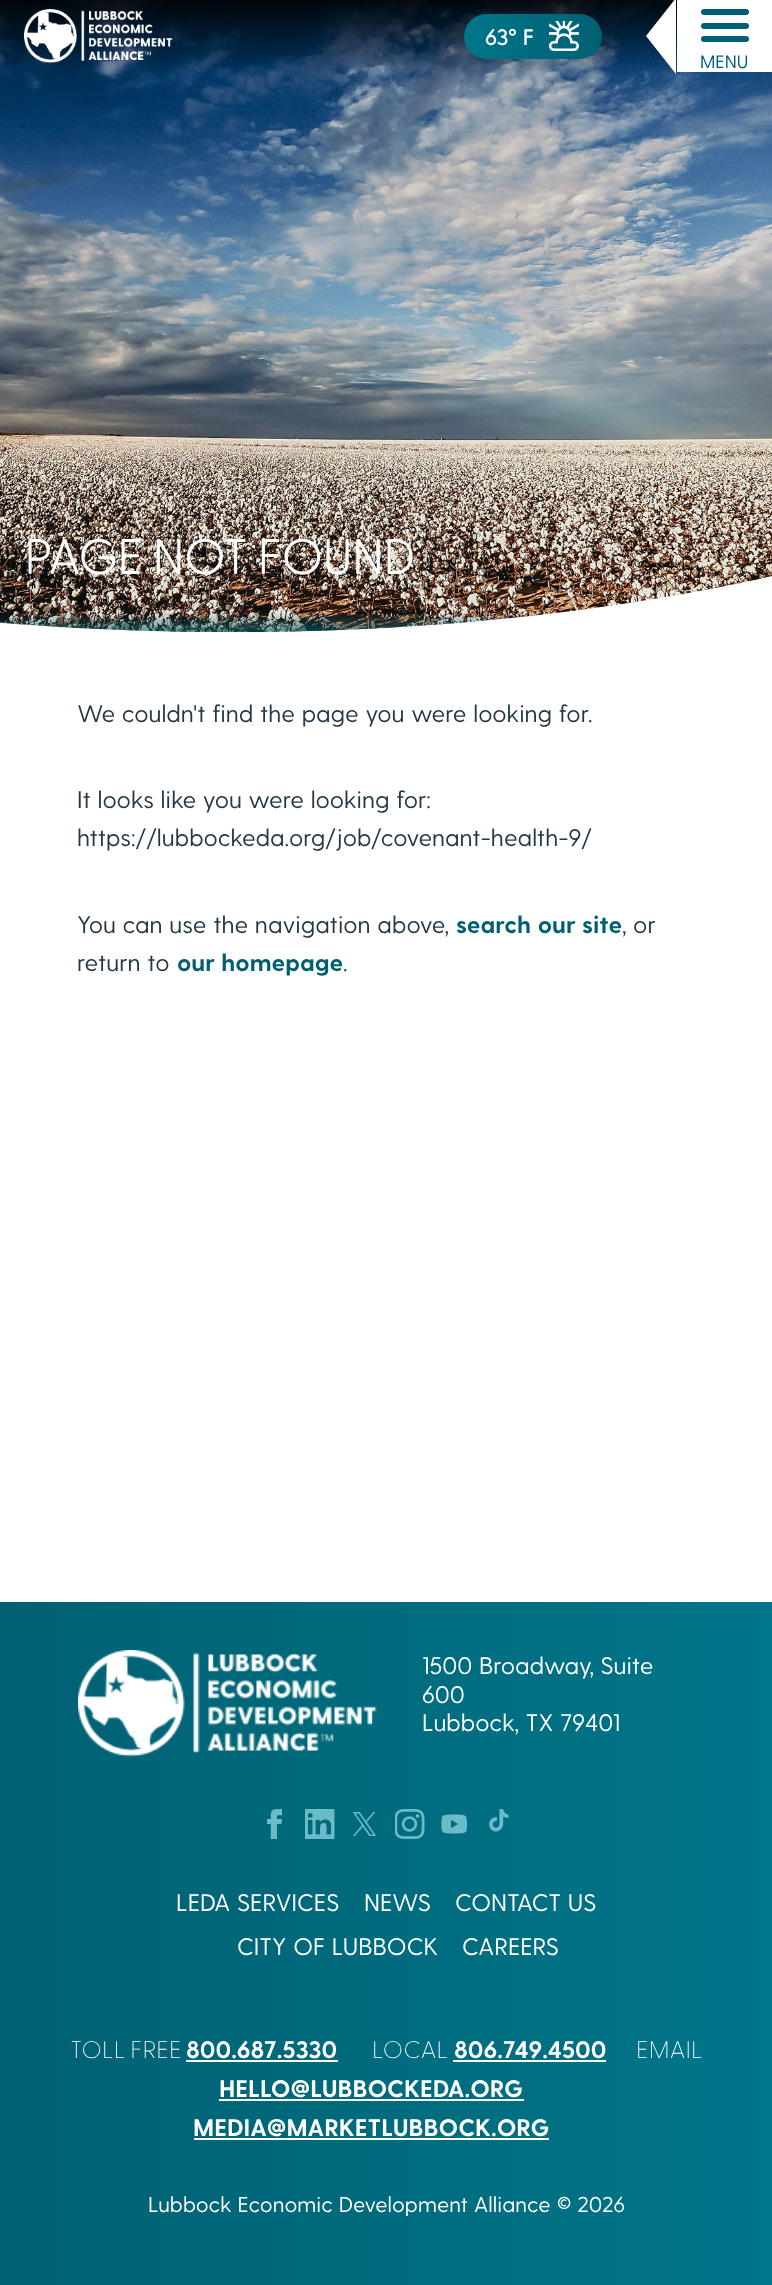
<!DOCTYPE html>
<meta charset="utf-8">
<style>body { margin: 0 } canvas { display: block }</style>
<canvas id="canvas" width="772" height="2285"></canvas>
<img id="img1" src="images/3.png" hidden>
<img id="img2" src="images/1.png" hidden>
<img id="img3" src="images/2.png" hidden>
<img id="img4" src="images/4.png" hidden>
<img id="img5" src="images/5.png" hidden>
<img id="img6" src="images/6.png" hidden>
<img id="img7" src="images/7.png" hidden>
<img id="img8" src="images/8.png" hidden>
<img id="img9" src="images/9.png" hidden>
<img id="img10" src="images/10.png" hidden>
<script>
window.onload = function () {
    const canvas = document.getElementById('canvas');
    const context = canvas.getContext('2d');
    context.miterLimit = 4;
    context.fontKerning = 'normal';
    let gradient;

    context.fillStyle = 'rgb(255, 255, 255)';
    context.fillRect(0, 0, 772, 2285);
    context.drawImage(document.getElementById('img1'), 0, 0, 772, 632);
    context.drawImage(document.getElementById('img2'), 24, 9, 149, 54);
    gradient = context.createLinearGradient(464, 36, 602, 36);
    gradient.addColorStop(0, 'rgb(0, 118, 138)');
    gradient.addColorStop(1, 'rgb(0, 96, 114)');
    context.fillStyle = gradient;
    context.beginPath();
    context.roundRect(464, 14, 138, 45, 22.5);
    context.fill();
    context.drawImage(document.getElementById('img3'), 549, 21, 30, 30);
    context.fillStyle = 'rgb(255, 255, 255)';
    context.fillRect(677, 0, 95, 72);
    context.beginPath();
    context.moveTo(676, -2);
    context.lineTo(676, 74);
    context.lineTo(646, 36);
    context.closePath();
    context.fill();
    context.fillStyle = 'rgb(0, 96, 114)';
    context.beginPath();
    context.roundRect(701, 23, 48, 6, 3);
    context.fill();
    context.beginPath();
    context.roundRect(701, 9, 48, 6, 3);
    context.fill();
    context.beginPath();
    context.roundRect(701, 36, 48, 6, 3);
    context.fill();
    gradient = context.createLinearGradient(386, 580, 386, 645);
    gradient.addColorStop(0.5, 'rgba(0, 96, 114, 0)');
    gradient.addColorStop(1, 'rgb(0, 96, 114)');
    context.fillStyle = gradient;
    context.beginPath();
    context.moveTo(0, 581);
    context.lineTo(750, 581);
    context.bezierCurveTo(597, 614, 420, 632, 232, 632);
    context.bezierCurveTo(152, 632, 75, 629, 0, 623);
    context.closePath();
    context.fill();
    gradient = context.createLinearGradient(0, 1944, 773, 1944);
    gradient.addColorStop(0, 'rgb(0, 96, 114)');
    gradient.addColorStop(1, 'rgb(0, 118, 138)');
    context.fillStyle = gradient;
    context.fillRect(0, 1602, 772, 683);
    context.drawImage(document.getElementById('img4'), 78, 1650, 299, 107);
    context.drawImage(document.getElementById('img5'), 267, 1809, 15, 30);
    context.drawImage(document.getElementById('img6'), 305, 1809, 30, 30);
    context.drawImage(document.getElementById('img7'), 352, 1812, 25, 24);
    context.drawImage(document.getElementById('img8'), 395, 1809, 30, 30);
    context.drawImage(document.getElementById('img9'), 441, 1814, 27, 20);
    context.drawImage(document.getElementById('img10'), 489, 1809, 20, 23);
    context.fillStyle = 'rgb(255, 255, 255)';
    context.fillRect(186, 2060, 152, 2);
    context.fillRect(453, 2060, 153, 2);
    context.fillRect(219, 2099, 305, 2);
    context.fillRect(194, 2138, 355, 2);
    context.font = 'bold 21.6px "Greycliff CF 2"';
    context.fillText('63° F', 485, 45);
    context.font = '18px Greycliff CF';
    context.fillStyle = 'rgb(0, 96, 114)';
    context.fillText('MENU', 700, 68);
    context.font = 'bold 48px "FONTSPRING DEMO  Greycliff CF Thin"';
    context.fillStyle = 'rgb(255, 255, 255)';
    context.fillText('PAGE NOT FOUND', 24, 574);
    context.font = '24px Greycliff CF';
    context.fillStyle = 'rgb(35, 55, 70)';
    context.fillText('We couldn\'t find the page you were looking for.', 77, 722);
    context.fillText('It looks like you were looking for:', 77, 808);
    context.fillText('https://lubbockeda.org/job/covenant-health-9/', 77, 846);
    context.fillText('You can use the navigation above,', 77, 933);
    context.font = 'bold 24px Greycliff CF';
    context.fillStyle = 'rgb(0, 96, 114)';
    context.fillText('search our site', 456, 933);
    context.font = '24px Greycliff CF';
    context.fillStyle = 'rgb(35, 55, 70)';
    context.fillText(', or', 622, 933);
    context.fillText('return to', 77, 971);
    context.font = 'bold 24px Greycliff CF';
    context.fillStyle = 'rgb(0, 96, 114)';
    context.fillText('our homepage', 177, 971);
    context.font = '24px Greycliff CF';
    context.fillStyle = 'rgb(35, 55, 70)';
    context.fillText('.', 343, 971);
    context.fillStyle = 'rgb(255, 255, 255)';
    context.fillText('1500 Broadway, Suite', 422, 1674);
    context.fillText('600', 422, 1703);
    context.fillText('Lubbock, TX 79401', 422, 1731);
    context.fillText('LEDA SERVICES', 176, 1911);
    context.fillText('NEWS', 364, 1911);
    context.fillText('CONTACT US', 455, 1911);
    context.fillText('CITY OF LUBBOCK', 237, 1955);
    context.fillText('CAREERS', 462, 1955);
    context.font = '100 24px "FONTSPRING DEMO  Greycliff CF Thin"';
    context.fillText('TOLL FREE', 70, 2058);
    context.font = 'bold 24px Greycliff CF';
    context.fillText('800.687.5330', 186, 2058);
    context.font = '100 24px "FONTSPRING DEMO  Greycliff CF Thin"';
    context.fillText('LOCAL', 372, 2058);
    context.font = 'bold 24px Greycliff CF';
    context.fillText('806.749.4500', 454, 2058);
    context.font = '100 24px "FONTSPRING DEMO  Greycliff CF Thin"';
    context.fillText('EMAIL', 636, 2058);
    context.font = 'bold 24px Greycliff CF';
    context.fillText('HELLO@LUBBOCKEDA.ORG', 219, 2097);
    context.fillText('MEDIA@MARKETLUBBOCK.ORG', 193, 2136);
    context.font = '21.6px Greycliff CF';
    context.fillText('Lubbock Economic Development Alliance © 2026', 148, 2212);
};
</script>
